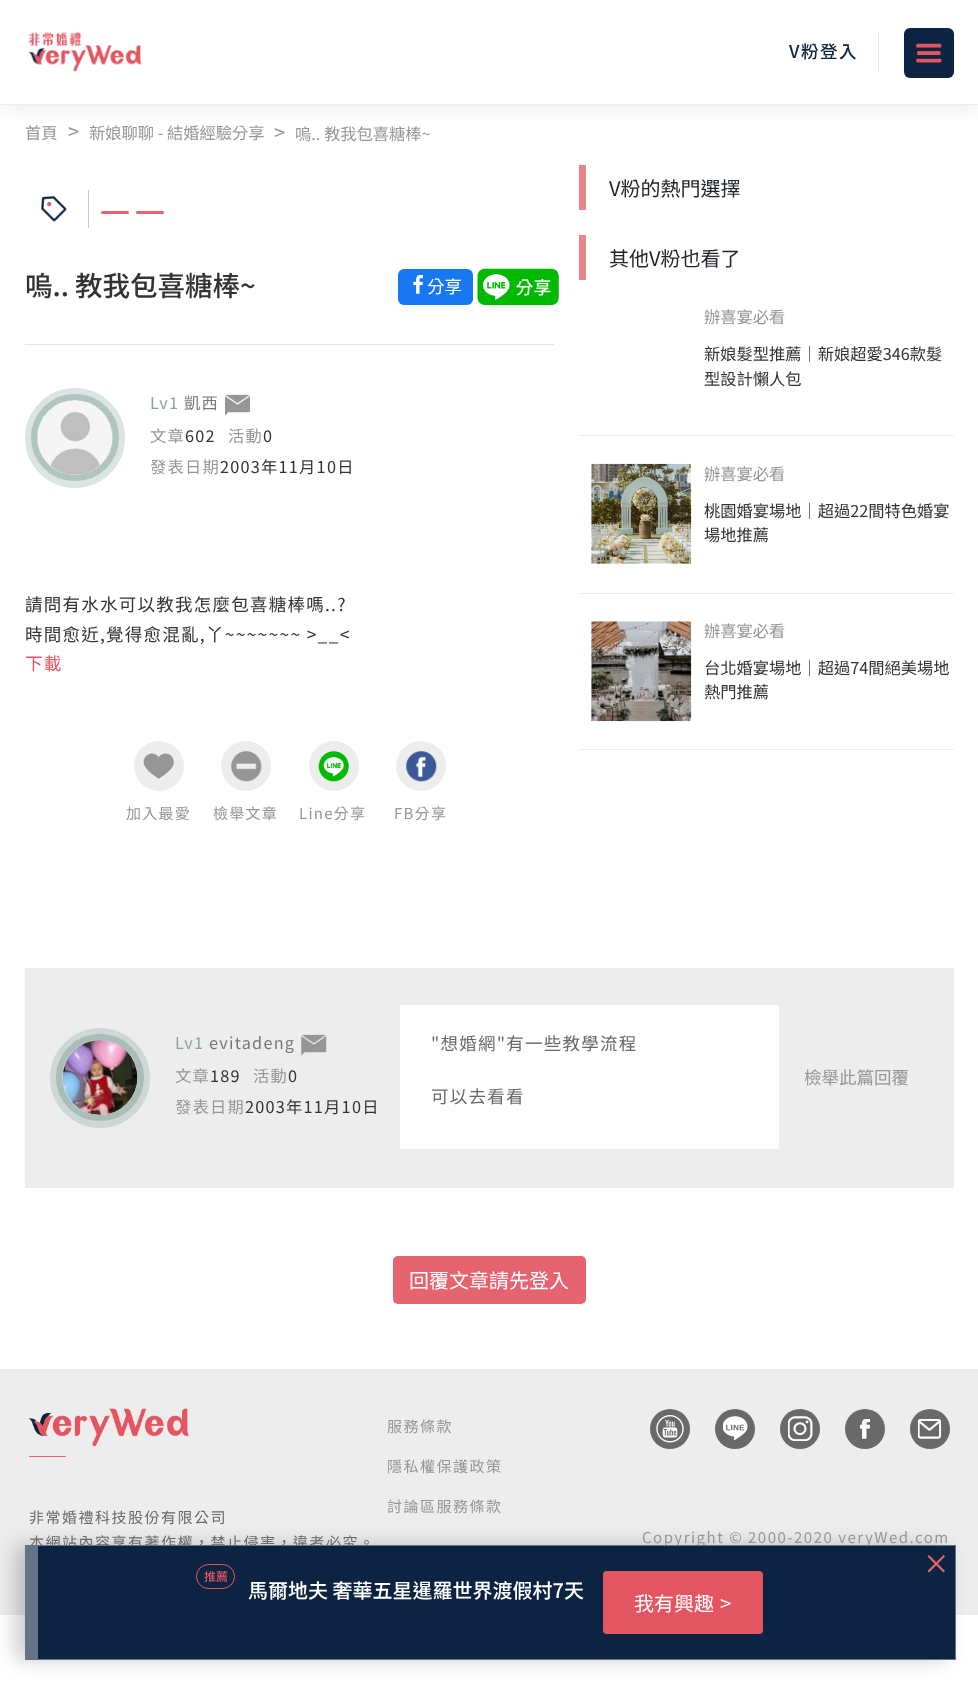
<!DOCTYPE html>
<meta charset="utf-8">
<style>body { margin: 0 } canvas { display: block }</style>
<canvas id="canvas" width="978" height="1684"></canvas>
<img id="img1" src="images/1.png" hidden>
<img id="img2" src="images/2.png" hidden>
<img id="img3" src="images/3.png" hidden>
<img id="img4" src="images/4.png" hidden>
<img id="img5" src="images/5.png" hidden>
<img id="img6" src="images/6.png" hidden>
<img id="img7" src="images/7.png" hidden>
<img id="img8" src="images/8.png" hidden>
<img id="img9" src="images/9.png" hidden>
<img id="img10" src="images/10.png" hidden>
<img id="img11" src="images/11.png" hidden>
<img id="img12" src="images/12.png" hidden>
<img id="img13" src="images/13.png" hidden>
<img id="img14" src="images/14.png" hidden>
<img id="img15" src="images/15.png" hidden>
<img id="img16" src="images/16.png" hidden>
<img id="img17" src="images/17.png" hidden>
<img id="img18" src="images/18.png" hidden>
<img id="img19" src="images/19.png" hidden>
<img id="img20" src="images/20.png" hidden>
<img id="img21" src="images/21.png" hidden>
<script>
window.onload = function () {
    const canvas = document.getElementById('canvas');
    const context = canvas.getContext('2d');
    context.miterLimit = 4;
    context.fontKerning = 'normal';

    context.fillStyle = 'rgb(255, 255, 255)';
    context.fillRect(0, 0, 978, 1684);
    context.save();
    context.beginPath();
    context.rect(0, 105, 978, 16);
    context.clip();
    context.fillStyle = 'rgba(125, 125, 125, 0.2)';
    context.filter = 'blur(12.5px)';
    context.beginPath();
    context.rect(0, 0, 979, 105);
    context.fill();
    context.filter = 'none';
    context.restore();
    context.fillStyle = 'rgb(237, 237, 237)';
    context.fillRect(0, 104, 978, 1);
    context.drawImage(document.getElementById('img1'), 28, 32, 114, 40);
    context.fillStyle = 'rgb(222, 226, 230)';
    context.beginPath();
    context.moveTo(879, 31);
    context.lineTo(879, 72);
    context.lineTo(878, 71);
    context.lineTo(878, 32);
    context.closePath();
    context.fill();
    context.fillStyle = 'rgb(12, 36, 65)';
    context.beginPath();
    context.roundRect(904, 28, 50, 50, 6);
    context.fill();
    context.drawImage(document.getElementById('img2'), 916, 43, 26, 20);
    context.drawImage(document.getElementById('img3'), 41, 196, 26, 26);
    context.fillStyle = 'rgb(202, 202, 202)';
    context.fillRect(88, 190, 1, 38);
    context.fillStyle = 'rgb(229, 100, 111)';
    context.beginPath();
    context.roundRect(101, 211, 28, 3, 1.5);
    context.fill();
    context.beginPath();
    context.roundRect(136, 211, 28, 3, 1.5);
    context.fill();
    context.fillStyle = 'rgb(24, 119, 242)';
    context.beginPath();
    context.roundRect(398, 269, 75, 36, 6);
    context.fill();
    context.drawImage(document.getElementById('img4'), 413, 275, 10, 19);
    context.drawImage(document.getElementById('img5'), 477, 268, 82, 37);
    context.fillStyle = 'rgb(230, 230, 230)';
    context.fillRect(25, 344, 529, 1);
    context.beginPath();
    context.arc(75, 438, 43.5, 0, 2 * Math.PI);
    context.strokeStyle = 'rgb(218, 228, 226)';
    context.lineWidth = 13;
    context.stroke();
    context.beginPath();
    context.roundRect(34, 397, 82, 81, 40.5);
    context.strokeStyle = 'rgba(133, 165, 157, 0.5)';
    context.lineWidth = 6;
    context.stroke();
    context.fillStyle = 'rgba(133, 165, 157, 0.3)';
    context.beginPath();
    context.moveTo(75, 401);
    context.bezierCurveTo(95, 401, 112, 418, 112, 438);
    context.bezierCurveTo(112, 458, 96, 475, 75, 475);
    context.bezierCurveTo(88, 475, 100, 469, 107, 458);
    context.bezierCurveTo(112, 450, 114, 440, 112, 430);
    context.bezierCurveTo(111, 423, 107, 416, 102, 411);
    context.bezierCurveTo(78, 387, 38, 404, 38, 438);
    context.bezierCurveTo(38, 417, 55, 401, 75, 401);
    context.closePath();
    context.fill();
    context.drawImage(document.getElementById('img6'), 38, 400, 75, 75);
    context.drawImage(document.getElementById('img7'), 225, 394, 25, 22);
    context.fillStyle = 'rgb(237, 237, 237)';
    context.beginPath();
    context.arc(159, 766, 25, 0, 2 * Math.PI);
    context.fill();
    context.drawImage(document.getElementById('img8'), 143, 753, 31, 26);
    context.beginPath();
    context.arc(246, 766, 25, 0, 2 * Math.PI);
    context.fill();
    context.drawImage(document.getElementById('img9'), 231, 751, 31, 31);
    context.beginPath();
    context.arc(334, 766, 25, 0, 2 * Math.PI);
    context.fill();
    context.drawImage(document.getElementById('img10'), 318, 751, 31, 31);
    context.beginPath();
    context.arc(421, 766, 25, 0, 2 * Math.PI);
    context.fill();
    context.drawImage(document.getElementById('img11'), 406, 751, 31, 31);
    context.fillStyle = 'rgb(234, 131, 140)';
    context.fillRect(579, 165, 7, 45);
    context.fillRect(579, 235, 7, 45);
    context.fillStyle = 'rgb(237, 237, 237)';
    context.fillRect(579, 435, 375, 1);
    context.fillRect(579, 593, 375, 1);
    context.drawImage(document.getElementById('img12'), 591, 463, 101, 101);
    context.fillRect(579, 749, 375, 1);
    context.drawImage(document.getElementById('img13'), 591, 621, 101, 101);
    context.fillRect(25, 968, 929, 220);
    context.beginPath();
    context.arc(100, 1078, 43.5, 0, 2 * Math.PI);
    context.strokeStyle = 'rgb(206, 215, 213)';
    context.lineWidth = 13;
    context.stroke();
    context.beginPath();
    context.roundRect(59, 1037, 82, 81, 40.5);
    context.strokeStyle = 'rgba(133, 165, 157, 0.5)';
    context.lineWidth = 6;
    context.stroke();
    context.fillStyle = 'rgba(133, 165, 157, 0.3)';
    context.beginPath();
    context.moveTo(100, 1041);
    context.bezierCurveTo(120, 1041, 137, 1058, 137, 1078);
    context.bezierCurveTo(137, 1098, 121, 1115, 100, 1115);
    context.bezierCurveTo(134, 1115, 151, 1075, 127, 1051);
    context.bezierCurveTo(122, 1046, 115, 1042, 108, 1041);
    context.bezierCurveTo(98, 1039, 88, 1041, 80, 1046);
    context.bezierCurveTo(69, 1053, 63, 1065, 63, 1078);
    context.bezierCurveTo(63, 1057, 80, 1041, 100, 1041);
    context.closePath();
    context.fill();
    context.drawImage(document.getElementById('img14'), 62, 1040, 76, 75);
    context.drawImage(document.getElementById('img15'), 301, 1034, 26, 22);
    context.fillStyle = 'rgb(255, 255, 255)';
    context.fillRect(400, 1005, 379, 144);
    context.fillStyle = 'rgb(229, 100, 111)';
    context.beginPath();
    context.roundRect(393, 1256, 193, 48, 5);
    context.fill();
    context.fillStyle = 'rgb(237, 237, 237)';
    context.fillRect(0, 1369, 978, 246);
    context.fillStyle = 'rgba(0, 0, 0, 0.2)';
    context.filter = 'blur(9.5px)';
    context.beginPath();
    context.rect(15, 1545, 931, 115);
    context.fill();
    context.filter = 'none';
    context.drawImage(document.getElementById('img16'), 28, 1408, 161, 39);
    context.fillStyle = 'rgb(229, 100, 111)';
    context.fillRect(29, 1456, 37, 1);
    context.fillStyle = 'rgb(105, 105, 105)';
    context.beginPath();
    context.arc(670, 1429, 20, 0, 2 * Math.PI);
    context.fill();
    context.drawImage(document.getElementById('img17'), 656, 1415, 28, 28);
    context.beginPath();
    context.arc(735, 1429, 20, 0, 2 * Math.PI);
    context.fill();
    context.drawImage(document.getElementById('img18'), 723, 1416, 25, 24);
    context.beginPath();
    context.arc(800, 1429, 20, 0, 2 * Math.PI);
    context.fill();
    context.drawImage(document.getElementById('img19'), 788, 1416, 25, 25);
    context.beginPath();
    context.arc(865, 1429, 20, 0, 2 * Math.PI);
    context.fill();
    context.drawImage(document.getElementById('img20'), 860, 1419, 10, 20);
    context.beginPath();
    context.arc(930, 1429, 20, 0, 2 * Math.PI);
    context.fill();
    context.drawImage(document.getElementById('img21'), 918, 1419, 23, 20);
    context.letterSpacing = '1.5px';
    context.font = '500 17.5px Noto Sans TC';
    context.fillStyle = 'rgb(12, 36, 65)';
    context.fillText('V粉登入', 789, 58);
    context.letterSpacing = '0px';
    context.font = '16.25px Noto Sans TC';
    context.fillStyle = 'rgb(150, 150, 150)';
    context.fillText('首頁', 25, 139);
    context.font = '20px Noto Sans TC';
    context.fillText('>', 68, 139);
    context.font = '16.25px Noto Sans TC';
    context.fillText('新娘聊聊 - 結婚經驗分享', 89, 139);
    context.font = '20px Noto Sans TC';
    context.fillText('>', 274, 140);
    context.font = '16.25px Noto Sans TC';
    context.fillText('嗚.. 教我包喜糖棒~', 295, 140);
    context.font = '500 27.5px Noto Sans TC';
    context.fillStyle = 'rgb(51, 51, 51)';
    context.fillText('嗚.. 教我包喜糖棒~', 25, 296);
    context.font = '17.5px Noto Sans TC';
    context.fillStyle = 'rgb(255, 255, 255)';
    context.fillText('分享', 427, 293);
    context.letterSpacing = '1.25px';
    context.font = '16.25px Noto Sans TC';
    context.fillStyle = 'rgb(133, 165, 157)';
    context.fillText('Lv1', 150, 409);
    context.fillStyle = 'rgb(119, 119, 119)';
    context.fillText('凱西', 184, 409);
    context.fillStyle = 'rgb(150, 150, 150)';
    context.fillText('文章', 150, 442);
    context.fillStyle = 'rgb(51, 51, 51)';
    context.fillText('602', 185, 442);
    context.fillStyle = 'rgb(150, 150, 150)';
    context.fillText('活動', 228, 442);
    context.fillStyle = 'rgb(51, 51, 51)';
    context.fillText('0', 263, 442);
    context.fillStyle = 'rgb(150, 150, 150)';
    context.fillText('發表日期', 150, 473);
    context.fillStyle = 'rgb(51, 51, 51)';
    context.fillText('2003年11月10日', 220, 473);
    context.font = '17.5px Noto Sans TC';
    context.fillText('請問有水水可以教我怎麼包喜糖棒嗎..?', 25, 611);
    context.fillText('時間愈近,覺得愈混亂,丫~~~~~~~ >__<', 25, 641);
    context.fillStyle = 'rgb(227, 85, 97)';
    context.fillText('下載', 25, 670);
    context.font = '15px Noto Sans TC';
    context.fillStyle = 'rgb(150, 150, 150)';
    context.fillText('加入最愛', 126, 819);
    context.fillText('檢舉文章', 213, 819);
    context.fillText('Line分享', 299, 819);
    context.fillText('FB分享', 394, 819);
    context.letterSpacing = '0px';
    context.font = '20px Noto Sans TC';
    context.fillStyle = 'rgb(33, 37, 41)';
    context.fillText('V粉的熱門選擇', 609, 196);
    context.fillText('其他V粉也看了', 609, 266);
    context.font = '16.25px Noto Sans TC';
    context.fillStyle = 'rgb(150, 150, 150)';
    context.fillText('辦喜宴必看', 704, 323);
    context.fillStyle = 'rgb(51, 51, 51)';
    context.fillText('新娘髮型推薦｜新娘超愛346款髮', 704, 360);
    context.fillText('型設計懶人包', 704, 385);
    context.fillStyle = 'rgb(150, 150, 150)';
    context.fillText('辦喜宴必看', 704, 480);
    context.fillStyle = 'rgb(51, 51, 51)';
    context.fillText('桃園婚宴場地｜超過22間特色婚宴', 704, 517);
    context.fillText('場地推薦', 704, 541);
    context.fillStyle = 'rgb(150, 150, 150)';
    context.fillText('辦喜宴必看', 704, 637);
    context.fillStyle = 'rgb(51, 51, 51)';
    context.fillText('台北婚宴場地｜超過74間絕美場地', 704, 674);
    context.fillText('熱門推薦', 704, 698);
    context.letterSpacing = '1.25px';
    context.fillStyle = 'rgb(133, 165, 157)';
    context.fillText('Lv1', 175, 1049);
    context.fillStyle = 'rgb(119, 119, 119)';
    context.fillText('evitadeng', 209, 1049);
    context.fillStyle = 'rgb(150, 150, 150)';
    context.fillText('文章', 175, 1082);
    context.fillStyle = 'rgb(51, 51, 51)';
    context.fillText('189', 210, 1082);
    context.fillStyle = 'rgb(150, 150, 150)';
    context.fillText('活動', 253, 1082);
    context.fillStyle = 'rgb(51, 51, 51)';
    context.fillText('0', 288, 1082);
    context.fillStyle = 'rgb(150, 150, 150)';
    context.fillText('發表日期', 175, 1113);
    context.fillStyle = 'rgb(51, 51, 51)';
    context.fillText('2003年11月10日', 245, 1113);
    context.font = '17.5px Noto Sans TC';
    context.fillStyle = 'rgb(105, 105, 105)';
    context.fillText('"想婚網"有一些教學流程', 431, 1050);
    context.fillText('可以去看看', 431, 1103);
    context.letterSpacing = '0px';
    context.fillStyle = 'rgb(150, 150, 150)';
    context.fillText('檢舉此篇回覆', 804, 1084);
    context.font = '20px Noto Sans TC';
    context.fillStyle = 'rgb(255, 255, 255)';
    context.fillText('回覆文章請先登入', 409, 1288);
    context.letterSpacing = '1.5px';
    context.font = '15px Noto Sans TC';
    context.fillStyle = 'rgb(150, 150, 150)';
    context.fillText('服務條款', 387, 1432);
    context.fillText('隱私權保護政策', 387, 1472);
    context.fillText('討論區服務條款', 387, 1512);
    context.fillStyle = 'rgb(105, 105, 105)';
    context.fillText('非常婚禮科技股份有限公司', 29, 1523);
    context.fillText('本網站內容享有著作權，禁止侵害，違者必究。', 29, 1548);
    context.fillStyle = 'rgb(100, 115, 134)';
    context.fillRect(25, 1545, 13, 115);
    context.fillStyle = 'rgb(150, 150, 150)';
    context.fillText('Copyright © 2000-2020 veryWed.com', 642, 1543);
    context.fillStyle = 'rgb(12, 36, 65)';
    context.fillRect(38, 1546, 917, 113);
    context.fillStyle = 'rgb(229, 100, 111)';
    context.beginPath();
    context.moveTo(943.5, 1555);
    context.lineTo(945, 1556.5);
    context.lineTo(929, 1572.5);
    context.lineTo(927.5, 1571);
    context.closePath();
    context.fill();
    context.beginPath();
    context.moveTo(927.5, 1556.5);
    context.lineTo(929, 1555);
    context.lineTo(945, 1571);
    context.lineTo(943.5, 1572.5);
    context.closePath();
    context.fill();
    context.beginPath();
    context.roundRect(196.5, 1564.5, 38, 24, 12);
    context.strokeStyle = 'rgb(227, 85, 97)';
    context.lineWidth = 1;
    context.stroke();
    context.letterSpacing = '0px';
    context.font = '500 12px Noto Sans TC';
    context.fillStyle = 'rgb(227, 85, 97)';
    context.fillText('推薦', 204, 1581);
    context.beginPath();
    context.roundRect(603, 1571, 160, 63, 4);
    context.fill();
    context.font = '20px Noto Sans TC';
    context.fillStyle = 'rgb(255, 255, 255)';
    context.fillText('>', 720, 1611);
    context.fillText('我有興趣', 634, 1611);
    context.font = '500 20px Noto Sans TC';
    context.fillText('馬爾地夫 奢華五星暹羅世界渡假村7天', 248, 1598);
    context.fillStyle = 'rgb(100, 115, 134)';
    context.fillRect(38, 1545, 918, 1);
    context.fillRect(955, 1545, 1, 115);
    context.fillRect(38, 1659, 918, 1);
};
</script>
